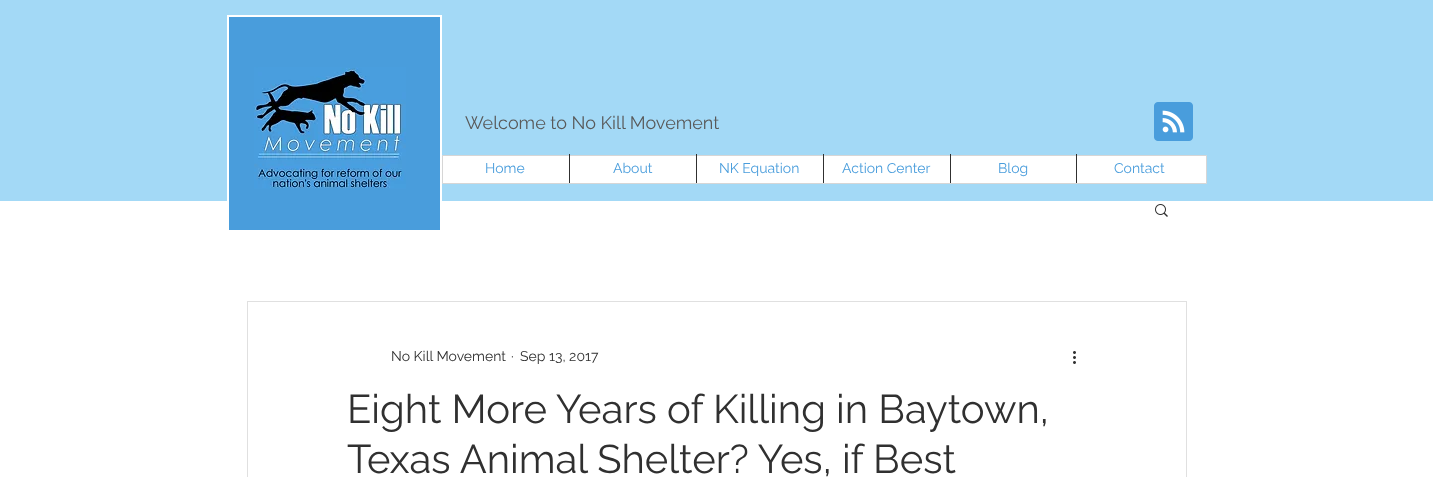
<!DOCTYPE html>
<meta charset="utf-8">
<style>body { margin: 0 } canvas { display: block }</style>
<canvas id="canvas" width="1433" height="477"></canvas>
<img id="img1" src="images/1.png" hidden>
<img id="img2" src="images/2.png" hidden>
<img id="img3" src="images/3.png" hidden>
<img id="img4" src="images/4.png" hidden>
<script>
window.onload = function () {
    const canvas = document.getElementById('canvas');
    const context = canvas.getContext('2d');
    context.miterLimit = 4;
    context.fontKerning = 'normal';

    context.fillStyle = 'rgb(255, 255, 255)';
    context.fillRect(0, 0, 1433, 477);
    context.fillStyle = 'rgb(163, 217, 246)';
    context.fillRect(0, 0, 1433, 201);
    context.fillStyle = 'rgb(73, 157, 220)';
    context.beginPath();
    context.rect(228, 16, 213, 215);
    context.fill();
    context.strokeStyle = 'rgb(255, 255, 255)';
    context.lineWidth = 2;
    context.stroke();
    context.drawImage(document.getElementById('img1'), 254, 67, 152, 122);
    context.drawImage(document.getElementById('img2'), 1154, 102, 39, 39);
    context.fillStyle = 'rgb(255, 255, 255)';
    context.beginPath();
    context.rect(442.5, 155.5, 764, 28);
    context.fill();
    context.strokeStyle = 'rgb(214, 214, 214)';
    context.lineWidth = 1;
    context.stroke();
    context.fillStyle = 'rgb(48, 48, 48)';
    context.fillRect(569, 154, 1, 29);
    context.fillRect(696, 154, 1, 29);
    context.fillRect(823, 154, 1, 29);
    context.fillRect(950, 154, 1, 29);
    context.fillRect(1076, 154, 1, 29);
    context.drawImage(document.getElementById('img3'), 1155, 204, 13, 13);
    context.strokeStyle = 'rgb(224, 224, 224)';
    context.strokeRect(247.5, 301.5, 939, 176);
    context.drawImage(document.getElementById('img4'), 1073, 351, 3, 13);
    context.font = '18px Raleway';
    context.fillStyle = 'rgb(89, 89, 89)';
    context.fillText('Welcome to No Kill Movement', 465, 129);
    context.font = '14px Raleway';
    context.fillStyle = 'rgb(73, 157, 220)';
    context.fillText('Home', 485, 173);
    context.fillText('About', 613, 173);
    context.fillText('NK Equation', 719, 173);
    context.fillText('Action Center', 842, 173);
    context.fillText('Blog', 998, 173);
    context.fillText('Contact', 1114, 173);
    context.fillStyle = 'rgb(48, 48, 48)';
    context.fillText('No Kill Movement', 391, 361);
    context.fillText('·', 511, 361);
    context.fillText('Sep 13, 2017', 520, 361);
    context.font = '40px Raleway';
    context.fillText('Eight More Years of Killing in Baytown,', 347, 423);
    context.fillText('Texas Animal Shelter? Yes, if Best', 347, 473);
};
</script>
